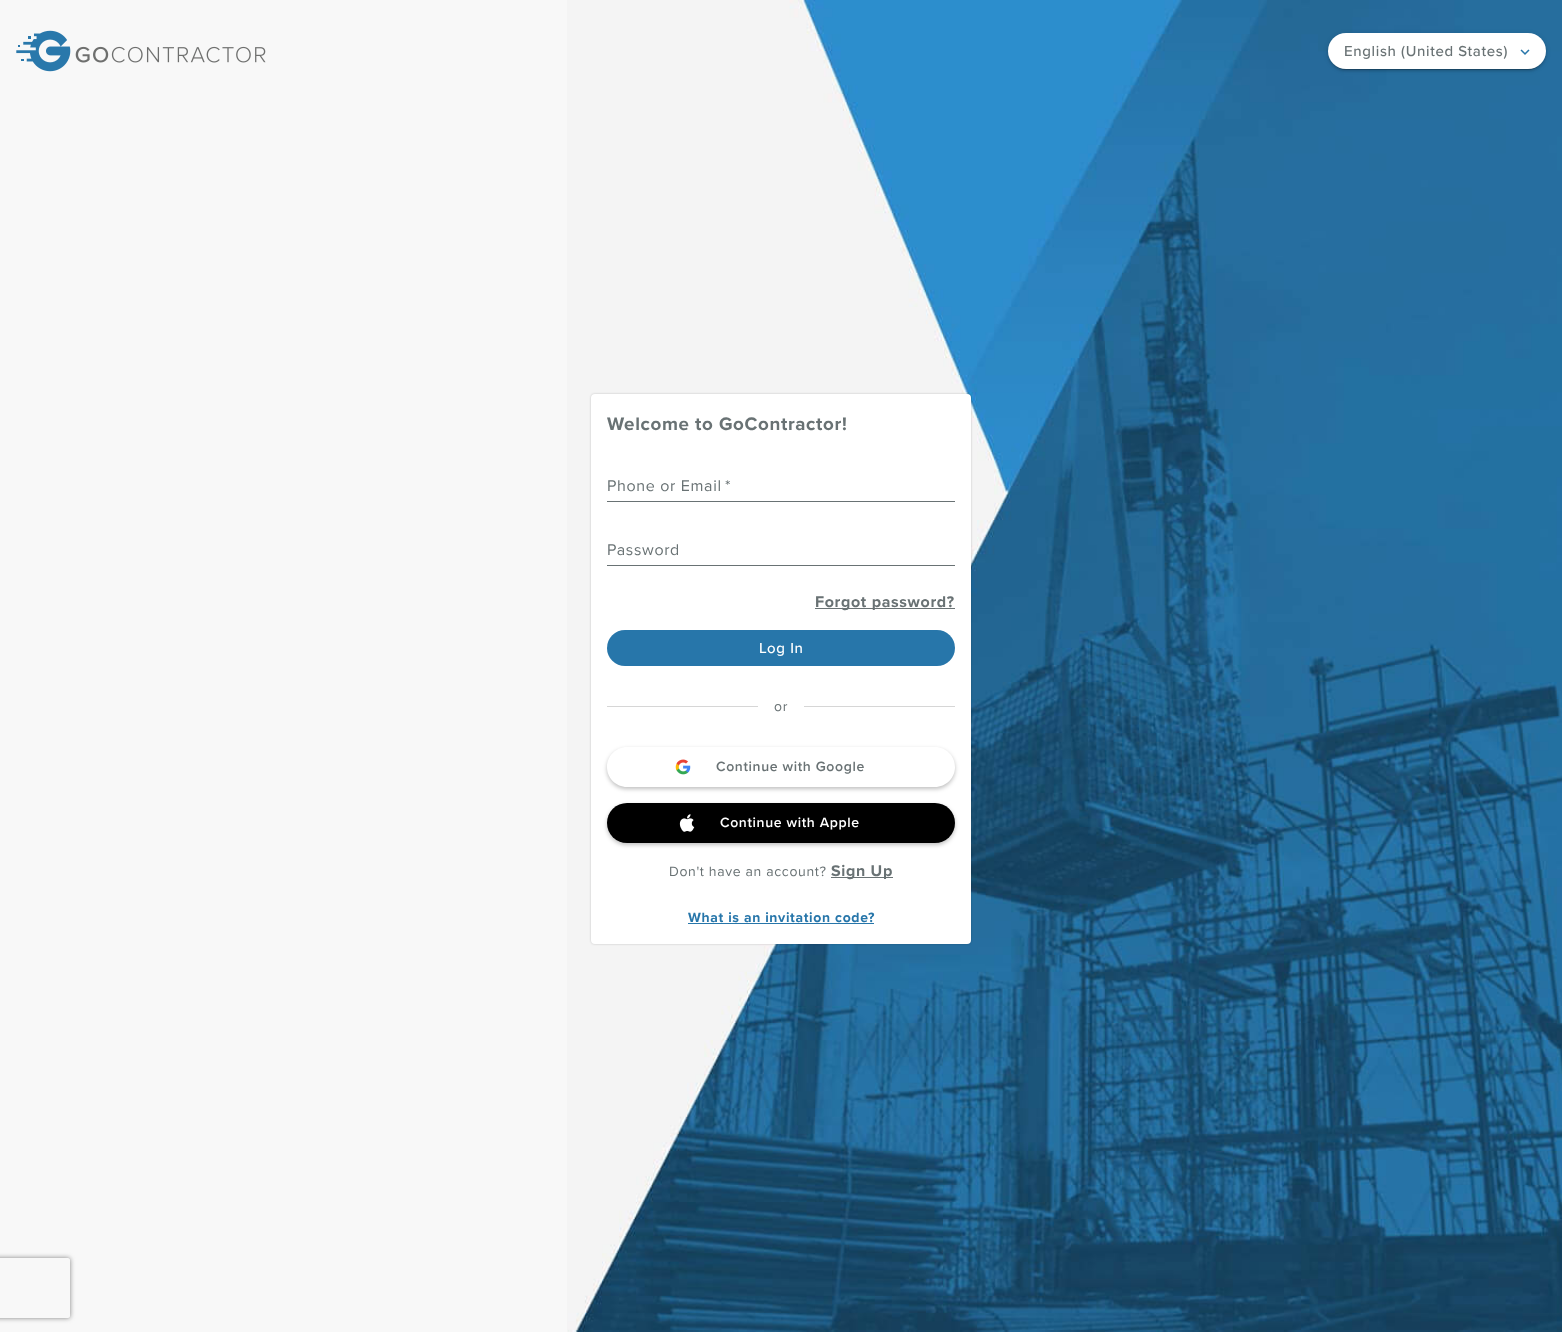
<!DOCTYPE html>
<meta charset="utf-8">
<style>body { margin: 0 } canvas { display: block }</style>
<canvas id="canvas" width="1562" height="1332"></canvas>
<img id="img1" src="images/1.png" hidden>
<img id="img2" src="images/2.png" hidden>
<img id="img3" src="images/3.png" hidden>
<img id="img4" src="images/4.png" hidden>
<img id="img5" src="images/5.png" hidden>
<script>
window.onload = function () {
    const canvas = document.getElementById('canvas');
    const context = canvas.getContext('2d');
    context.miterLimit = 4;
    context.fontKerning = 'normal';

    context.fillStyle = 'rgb(248, 248, 248)';
    context.fillRect(0, 0, 1562, 1332);
    context.drawImage(document.getElementById('img1'), 567, 0, 995, 1332);
    context.drawImage(document.getElementById('img2'), 16, 30, 250, 42);
    context.fillStyle = 'rgba(0, 0, 0, 0.12)';
    context.filter = 'blur(2.5px)';
    context.beginPath();
    context.roundRect(1328, 34, 218, 36, 18);
    context.fill();
    context.filter = 'none';
    context.fillStyle = 'rgba(0, 0, 0, 0.14)';
    context.filter = 'blur(1px)';
    context.beginPath();
    context.roundRect(1328, 35, 218, 36, 18);
    context.fill();
    context.filter = 'none';
    context.fillStyle = 'rgba(0, 0, 0, 0.2)';
    context.filter = 'blur(0.5px)';
    context.beginPath();
    context.roundRect(1330, 38, 214, 32, 16);
    context.fill();
    context.filter = 'none';
    context.fillStyle = 'rgb(255, 255, 255)';
    context.beginPath();
    context.roundRect(1328, 33, 218, 36, 18);
    context.fill();
    context.drawImage(document.getElementById('img3'), 1520, 49, 10, 6);
    context.fillStyle = 'rgba(0, 0, 0, 0.2)';
    context.filter = 'blur(1px)';
    context.beginPath();
    context.roundRect(591, 394, 380, 550, 4);
    context.fill();
    context.filter = 'none';
    context.fillStyle = 'rgb(255, 255, 255)';
    context.beginPath();
    context.roundRect(591, 394, 380, 550, 4);
    context.fill();
    context.fillStyle = 'rgb(105, 114, 116)';
    context.fillRect(607, 501, 348, 1);
    context.fillRect(607, 565, 348, 1);
    context.fillRect(815, 608, 140, 1);
    context.fillStyle = 'rgb(39, 118, 170)';
    context.beginPath();
    context.roundRect(607, 630, 348, 36, 18);
    context.fill();
    context.save();
    context.beginPath();
    context.moveTo(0, 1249);
    context.lineTo(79, 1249);
    context.lineTo(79, 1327);
    context.lineTo(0, 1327);
    context.closePath();
    context.moveTo(-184, 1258);
    context.lineTo(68, 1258);
    context.bezierCurveTo(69, 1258, 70, 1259, 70, 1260);
    context.lineTo(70, 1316);
    context.bezierCurveTo(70, 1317, 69, 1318, 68, 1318);
    context.lineTo(-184, 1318);
    context.bezierCurveTo(-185, 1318, -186, 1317, -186, 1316);
    context.lineTo(-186, 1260);
    context.bezierCurveTo(-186, 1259, -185, 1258, -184, 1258);
    context.closePath();
    context.clip('evenodd');
    context.fillStyle = 'rgb(128, 128, 128)';
    context.filter = 'blur(2.5px)';
    context.beginPath();
    context.roundRect(-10, 1258, 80, 60, 2);
    context.fill();
    context.filter = 'none';
    context.restore();
    context.fillStyle = 'rgb(214, 214, 214)';
    context.fillRect(607, 706, 151, 1);
    context.fillRect(804, 706, 151, 1);
    context.save();
    context.beginPath();
    context.moveTo(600, 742);
    context.lineTo(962, 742);
    context.lineTo(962, 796);
    context.lineTo(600, 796);
    context.closePath();
    context.moveTo(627, 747);
    context.lineTo(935, 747);
    context.bezierCurveTo(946, 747, 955, 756, 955, 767);
    context.bezierCurveTo(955, 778, 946, 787, 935, 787);
    context.lineTo(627, 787);
    context.bezierCurveTo(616, 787, 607, 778, 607, 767);
    context.bezierCurveTo(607, 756, 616, 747, 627, 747);
    context.closePath();
    context.clip('evenodd');
    context.fillStyle = 'rgba(0, 0, 0, 0.25)';
    context.filter = 'blur(2px)';
    context.beginPath();
    context.roundRect(607, 749, 348, 40, 20);
    context.fill();
    context.filter = 'none';
    context.restore();
    context.drawImage(document.getElementById('img4'), 675, 759, 16, 16);
    context.fillStyle = 'rgba(0, 0, 0, 0.25)';
    context.filter = 'blur(2px)';
    context.beginPath();
    context.roundRect(607, 805, 348, 40, 20);
    context.fill();
    context.filter = 'none';
    context.fillStyle = 'rgb(0, 0, 0)';
    context.beginPath();
    context.roundRect(607, 803, 348, 40, 20);
    context.fill();
    context.drawImage(document.getElementById('img5'), 679, 814, 16, 18);
    context.fillStyle = 'rgb(105, 114, 116)';
    context.fillRect(831, 877, 62, 1);
    context.fillStyle = 'rgb(39, 118, 170)';
    context.fillRect(688, 923, 186, 1);
    context.letterSpacing = '0.65px';
    context.font = '500 15px Proxima Nova';
    context.fillStyle = 'rgb(105, 114, 116)';
    context.fillText('English (United States)', 1344, 56);
    context.font = 'bold 18.75px Proxima Nova';
    context.fillText('Welcome to GoContractor!', 607, 430);
    context.font = '16px Proxima Nova';
    context.fillText('Phone or Email', 607, 491);
    context.fillText('*', 725, 491);
    context.fillText('Password', 607, 555);
    context.font = 'bold 16px Proxima Nova';
    context.fillText('Forgot password?', 815, 607);
    context.font = '500 15px Proxima Nova';
    context.fillStyle = 'rgb(255, 255, 255)';
    context.fillText('Log In', 759, 653);
    context.font = '14px Proxima Nova';
    context.fillStyle = 'rgb(105, 114, 116)';
    context.fillText('or', 774, 711);
    context.font = '600 14px Proxima Nova';
    context.fillText('Continue with Google', 716, 771);
    context.fillStyle = 'rgb(255, 255, 255)';
    context.fillText('Continue with Apple', 720, 827);
    context.font = '14px Proxima Nova';
    context.fillStyle = 'rgb(105, 114, 116)';
    context.fillText('Don\'t have an account?', 669, 876);
    context.font = 'bold 16px Proxima Nova';
    context.fillText('Sign Up', 831, 876);
    context.font = 'bold 14px Proxima Nova';
    context.fillStyle = 'rgb(39, 118, 170)';
    context.fillText('What is an invitation code?', 688, 922);
};
</script>
